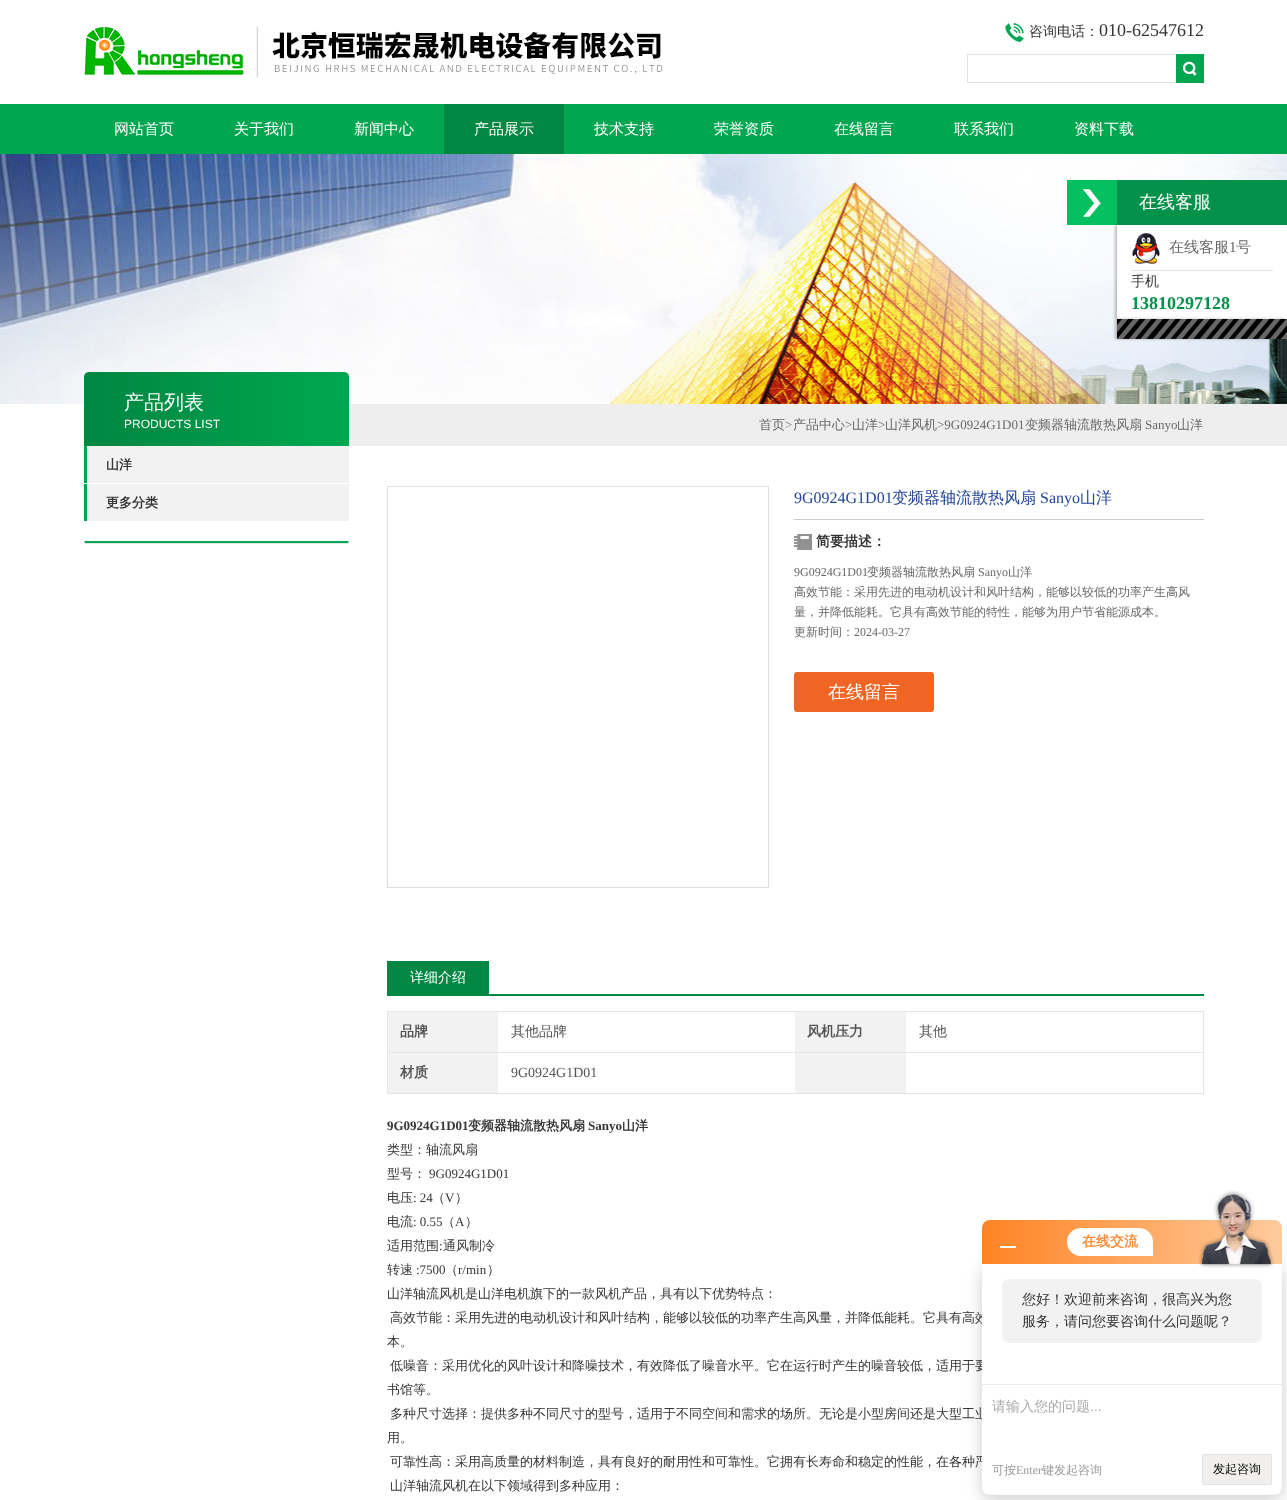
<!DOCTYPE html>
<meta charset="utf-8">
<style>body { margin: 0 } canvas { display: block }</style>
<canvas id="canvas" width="1287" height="1500"></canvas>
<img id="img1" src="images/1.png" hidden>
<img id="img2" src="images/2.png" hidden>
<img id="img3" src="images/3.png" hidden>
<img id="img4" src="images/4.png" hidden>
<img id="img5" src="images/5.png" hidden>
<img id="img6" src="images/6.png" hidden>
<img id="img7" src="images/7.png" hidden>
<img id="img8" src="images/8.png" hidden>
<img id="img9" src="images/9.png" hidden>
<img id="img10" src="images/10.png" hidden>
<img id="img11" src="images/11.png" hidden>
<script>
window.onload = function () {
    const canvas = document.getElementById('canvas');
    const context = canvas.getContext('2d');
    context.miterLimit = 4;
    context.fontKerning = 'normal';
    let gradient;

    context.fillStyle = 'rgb(255, 255, 255)';
    context.fillRect(0, 0, 1287, 1500);
    context.fillStyle = 'rgb(238, 238, 238)';
    context.fillRect(349, 404, 938, 42);
    context.drawImage(document.getElementById('img1'), 84, 26, 579, 52);
    context.drawImage(document.getElementById('img2'), 1004, 22, 22, 21);
    context.fillStyle = 'rgb(225, 225, 225)';
    context.fillRect(967, 54, 209, 1);
    context.fillRect(967, 82, 209, 1);
    context.fillRect(967, 54, 1, 29);
    context.drawImage(document.getElementById('img3'), 1176, 54, 28, 29);
    context.fillStyle = 'rgb(0, 166, 80)';
    context.fillRect(0, 104, 1287, 50);
    context.fillStyle = 'rgb(0, 135, 66)';
    context.fillRect(444, 104, 120, 50);
    context.drawImage(document.getElementById('img4'), 0, 154, 1287, 250);
    context.drawImage(document.getElementById('img5'), 1067, 180, 50, 45);
    context.fillStyle = 'rgb(255, 255, 255)';
    context.fillRect(1117, 225, 170, 94);
    context.save();
    context.beginPath();
    context.rect(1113, 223, 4, 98);
    context.clip();
    context.fillStyle = 'rgba(0, 0, 0, 0.25)';
    context.filter = 'blur(1.5px)';
    context.beginPath();
    context.rect(1115, 225, 170, 94);
    context.fill();
    context.filter = 'none';
    context.restore();
    context.fillStyle = 'rgb(4, 145, 73)';
    context.fillRect(1117, 180, 170, 45);
    context.fillStyle = 'rgb(227, 227, 227)';
    context.fillRect(1131, 270, 142, 1);
    context.drawImage(document.getElementById('img6'), 1132, 233, 29, 33);
    context.fillStyle = 'rgba(0, 0, 0, 0.25)';
    context.filter = 'blur(1.5px)';
    context.beginPath();
    context.rect(1115, 319, 170, 20);
    context.fill();
    context.filter = 'none';
    context.drawImage(document.getElementById('img7'), 1117, 319, 170, 20);
    context.drawImage(document.getElementById('img8'), 84, 372, 265, 74);
    context.drawImage(document.getElementById('img9'), 84, 446, 265, 37);
    context.drawImage(document.getElementById('img9'), 84, 484, 265, 37);
    context.fillStyle = 'rgb(0, 166, 80)';
    context.beginPath();
    context.moveTo(84, 541);
    context.lineTo(349, 541);
    context.lineTo(348, 543);
    context.lineTo(85, 543);
    context.closePath();
    context.fill();
    context.fillStyle = 'rgb(228, 228, 228)';
    context.beginPath();
    context.moveTo(349, 541);
    context.lineTo(349, 544);
    context.lineTo(348, 543);
    context.closePath();
    context.fill();
    context.fillRect(84, 543, 265, 1);
    context.beginPath();
    context.moveTo(84, 544);
    context.lineTo(84, 541);
    context.lineTo(85, 543);
    context.closePath();
    context.fill();
    context.strokeStyle = 'rgb(221, 221, 221)';
    context.strokeRect(387.5, 486.5, 381, 401);
    context.fillStyle = 'rgb(204, 204, 204)';
    context.fillRect(794, 519, 410, 1);
    context.drawImage(document.getElementById('img10'), 794, 534, 18, 16);
    context.fillStyle = 'rgb(240, 101, 36)';
    context.beginPath();
    context.roundRect(794, 672, 140, 40, 3);
    context.fill();
    context.fillStyle = 'rgb(0, 135, 66)';
    context.fillRect(387, 994, 817, 2);
    context.fillRect(387, 961, 102, 33);
    context.fillStyle = 'rgb(230, 229, 229)';
    context.fillRect(387, 1011, 817, 1);
    context.fillRect(1203, 1011, 1, 83);
    context.fillRect(387, 1011, 1, 83);
    context.fillStyle = 'rgb(242, 242, 242)';
    context.fillRect(388, 1012, 110, 40);
    context.fillRect(795, 1012, 111, 40);
    context.fillStyle = 'rgb(230, 229, 229)';
    context.fillRect(387, 1052, 817, 1);
    context.fillStyle = 'rgb(242, 242, 242)';
    context.fillRect(388, 1053, 110, 40);
    context.fillRect(795, 1053, 111, 40);
    context.fillStyle = 'rgb(230, 229, 229)';
    context.fillRect(387, 1093, 817, 1);
    context.fillStyle = 'rgba(0, 0, 0, 0.2)';
    context.filter = 'blur(8px)';
    context.beginPath();
    context.roundRect(982, 1268, 300, 231, 8);
    context.fill();
    context.filter = 'none';
    gradient = context.createLinearGradient(982, 1242, 1282, 1242);
    gradient.addColorStop(0, 'rgb(255, 131, 36)');
    gradient.addColorStop(1, 'rgb(254, 203, 156)');
    context.fillStyle = gradient;
    context.beginPath();
    context.roundRect(982, 1220, 300, 44, [8, 8, 0, 0]);
    context.fill();
    context.fillStyle = 'rgb(255, 255, 255)';
    context.fillRect(1000, 1246, 16, 2);
    context.beginPath();
    context.roundRect(1067, 1228, 86, 28, [14, 14, 0, 14]);
    context.fill();
    context.font = '500 14px WenQuanYi Zen Hei';
    context.fillStyle = 'rgb(53, 53, 53)';
    context.fillText('咨询电话：', 1029, 36);
    context.font = '18px Liberation Serif';
    context.fillText('010-62547612', 1099, 36);
    context.font = '500 15px WenQuanYi Zen Hei';
    context.fillStyle = 'rgb(255, 255, 255)';
    context.fillText('网站首页', 114, 134);
    context.fillText('关于我们', 234, 134);
    context.fillText('新闻中心', 354, 134);
    context.fillText('产品展示', 474, 134);
    context.fillText('技术支持', 594, 134);
    context.fillText('荣誉资质', 714, 134);
    context.fillText('在线留言', 834, 134);
    context.fillText('联系我们', 954, 134);
    context.fillText('资料下载', 1074, 134);
    context.font = '500 18px WenQuanYi Zen Hei';
    context.fillText('在线客服', 1139, 208);
    context.font = '500 15px WenQuanYi Zen Hei';
    context.fillStyle = 'rgb(104, 104, 104)';
    context.fillText('在线客服', 1169, 252);
    context.font = '15px Liberation Serif';
    context.fillText('1', 1229, 252);
    context.font = '500 15px WenQuanYi Zen Hei';
    context.fillText('号', 1236, 252);
    context.font = '500 14px WenQuanYi Zen Hei';
    context.fillStyle = 'rgb(53, 53, 53)';
    context.fillText('手机', 1131, 286);
    context.font = 'bold 18px Liberation Serif';
    context.fillStyle = 'rgb(4, 145, 73)';
    context.fillText('13810297128', 1131, 309);
    context.font = '500 20px WenQuanYi Zen Hei';
    context.fillStyle = 'rgb(255, 255, 255)';
    context.fillText('产品列表', 124, 409);
    context.font = '12px Liberation Sans';
    context.fillText('PRODUCTS LIST', 124, 428);
    context.font = 'bold 13px WenQuanYi Zen Hei';
    context.fillStyle = 'rgb(53, 53, 53)';
    context.fillText('山洋', 106, 469);
    context.fillText('更多分类', 106, 507);
    context.font = '500 13px WenQuanYi Zen Hei';
    context.fillStyle = 'rgb(104, 104, 104)';
    context.fillText('首页', 759, 429);
    context.font = '13px Liberation Serif';
    context.fillText('>', 785, 429);
    context.font = '500 13px WenQuanYi Zen Hei';
    context.fillText('产品中心', 793, 429);
    context.font = '13px Liberation Serif';
    context.fillText('>', 845, 429);
    context.font = '500 13px WenQuanYi Zen Hei';
    context.fillText('山洋', 852, 429);
    context.font = '13px Liberation Serif';
    context.fillText('>', 878, 429);
    context.font = '500 13px WenQuanYi Zen Hei';
    context.fillText('山洋风机', 885, 429);
    context.font = '13px Liberation Serif';
    context.fillText('>9G0924G1D01', 937, 429);
    context.font = '500 13px WenQuanYi Zen Hei';
    context.fillText('变频器轴流散热风扇', 1025, 429);
    context.font = '13px Liberation Serif';
    context.fillText('Sanyo', 1145, 429);
    context.font = '500 13px WenQuanYi Zen Hei';
    context.fillText('山洋', 1177, 429);
    context.font = '16px Liberation Serif';
    context.fillStyle = 'rgb(34, 70, 154)';
    context.fillText('9G0924G1D01', 794, 503);
    context.font = '500 16px WenQuanYi Zen Hei';
    context.fillText('变频器轴流散热风扇', 892, 503);
    context.font = '16px Liberation Serif';
    context.fillText('Sanyo', 1040, 503);
    context.font = '500 16px WenQuanYi Zen Hei';
    context.fillText('山洋', 1080, 503);
    context.font = 'bold 14px WenQuanYi Zen Hei';
    context.fillStyle = 'rgb(53, 53, 53)';
    context.fillText('简要描述：', 816, 546);
    context.font = '12px Liberation Serif';
    context.fillStyle = 'rgb(104, 104, 104)';
    context.fillText('9G0924G1D01', 794, 576);
    context.font = '500 12px WenQuanYi Zen Hei';
    context.fillText('变频器轴流散热风扇', 867, 576);
    context.font = '12px Liberation Serif';
    context.fillText('Sanyo', 978, 576);
    context.font = '500 12px WenQuanYi Zen Hei';
    context.fillText('山洋', 1008, 576);
    context.fillText('高效节能：采用先进的电动机设计和风叶结构，能够以较低的功率产生高风', 794, 596);
    context.fillText('量，并降低能耗。它具有高效节能的特性，能够为用户节省能源成本。', 794, 616);
    context.fillText('更新时间：', 794, 636);
    context.font = '12px Liberation Serif';
    context.fillText('2024-03-27', 854, 636);
    context.font = '500 18px WenQuanYi Zen Hei';
    context.fillStyle = 'rgb(255, 255, 255)';
    context.fillText('在线留言', 828, 698);
    context.font = '500 14px WenQuanYi Zen Hei';
    context.fillText('详细介绍', 410, 982);
    context.font = 'bold 14px WenQuanYi Zen Hei';
    context.fillStyle = 'rgb(85, 85, 85)';
    context.fillText('品牌', 400, 1036);
    context.font = '500 14px WenQuanYi Zen Hei';
    context.fillText('其他品牌', 511, 1036);
    context.font = 'bold 14px WenQuanYi Zen Hei';
    context.fillText('风机压力', 807, 1036);
    context.font = '500 14px WenQuanYi Zen Hei';
    context.fillText('其他', 919, 1036);
    context.font = 'bold 14px WenQuanYi Zen Hei';
    context.fillText('材质', 400, 1077);
    context.font = '14px Liberation Serif';
    context.fillText('9G0924G1D01', 511, 1077);
    context.font = 'bold 13px Liberation Serif';
    context.fillStyle = 'rgb(53, 53, 53)';
    context.fillText('9G0924G1D01', 387, 1130);
    context.font = 'bold 13px WenQuanYi Zen Hei';
    context.fillText('变频器轴流散热风扇', 468, 1130);
    context.font = 'bold 13px Liberation Serif';
    context.fillText('Sanyo', 588, 1130);
    context.font = 'bold 13px WenQuanYi Zen Hei';
    context.fillText('山洋', 622, 1130);
    context.font = '500 13px WenQuanYi Zen Hei';
    context.fillText('类型：轴流风扇', 387, 1154);
    context.fillText('型号：', 387, 1178);
    context.font = '13px Liberation Serif';
    context.fillText('9G0924G1D01', 429, 1178);
    context.font = '500 13px WenQuanYi Zen Hei';
    context.fillText('电压', 387, 1202);
    context.font = '13px Liberation Serif';
    context.fillText(': 24', 413, 1202);
    context.font = '500 13px WenQuanYi Zen Hei';
    context.fillText('（', 432, 1202);
    context.font = '13px Liberation Serif';
    context.fillText('V', 445, 1202);
    context.font = '500 13px WenQuanYi Zen Hei';
    context.fillText('）', 455, 1202);
    context.fillText('电流', 387, 1226);
    context.font = '13px Liberation Serif';
    context.fillText(': 0.55', 413, 1226);
    context.font = '500 13px WenQuanYi Zen Hei';
    context.fillText('（', 442, 1226);
    context.font = '13px Liberation Serif';
    context.fillText('A', 455, 1226);
    context.font = '500 13px WenQuanYi Zen Hei';
    context.fillText('）', 465, 1226);
    context.fillText('适用范围 通风制冷', 387, 1250);
    context.font = '13px Liberation Serif';
    context.fillText(':', 439, 1250);
    context.font = '500 13px WenQuanYi Zen Hei';
    context.fillText('转速', 387, 1274);
    context.font = '13px Liberation Serif';
    context.fillText(':7500', 416, 1274);
    context.font = '500 13px WenQuanYi Zen Hei';
    context.fillText('（', 445, 1274);
    context.font = '13px Liberation Serif';
    context.fillText('r/min', 458, 1274);
    context.font = '500 13px WenQuanYi Zen Hei';
    context.fillText('）', 487, 1274);
    context.fillText('山洋轴流风机是山洋电机旗下的一款风机产品，具有以下优势特点：', 387, 1298);
    context.fillText('高效节能：采用先进的电动机设计和风叶结构，能够以较低的功率产生高风量，并降低能耗。它具有高效', 390, 1322);
    context.fillText('本。', 387, 1346);
    context.fillText('低噪音：采用优化的风叶设计和降噪技术，有效降低了噪音水平。它在运行时产生的噪音较低，适用于要', 390, 1370);
    context.fillText('书馆等。', 387, 1394);
    context.fillText('多种尺寸选择：提供多种不同尺寸的型号，适用于不同空间和需求的场所。无论是小型房间还是大型工业', 390, 1418);
    context.fillText('用。', 387, 1442);
    context.fillText('可靠性高：采用高质量的材料制造，具有良好的耐用性和可靠性。它拥有长寿命和稳定的性能，在各种严', 390, 1466);
    context.fillText('山洋轴流风机在以下领域得到多种应用：', 390, 1490);
    context.font = 'bold 14px WenQuanYi Zen Hei';
    context.fillStyle = 'rgb(251, 139, 54)';
    context.fillText('在线交流', 1082, 1246);
    context.fillStyle = 'rgb(255, 255, 255)';
    context.beginPath();
    context.roundRect(982, 1264, 300, 231, [0, 0, 8, 8]);
    context.fill();
    context.drawImage(document.getElementById('img11'), 1198, 1190, 76, 78);
    context.fillStyle = 'rgb(242, 242, 242)';
    context.beginPath();
    context.roundRect(1002, 1279, 260, 64, 8);
    context.fill();
    context.font = '500 14px WenQuanYi Zen Hei';
    context.fillStyle = 'rgb(53, 53, 53)';
    context.fillText('您好！欢迎前来咨询，很高兴为您', 1022, 1304);
    context.fillText('服务，请问您要咨询什么问题呢？', 1022, 1326);
    context.fillStyle = 'rgb(234, 234, 234)';
    context.fillRect(982, 1384, 300, 1);
    context.fillStyle = 'rgb(170, 170, 170)';
    context.fillText('请输入您的问题', 992, 1411);
    context.font = '14px Liberation Sans';
    context.fillText('...', 1090, 1411);
    context.font = '500 12px WenQuanYi Zen Hei';
    context.fillStyle = 'rgb(153, 153, 153)';
    context.fillText('可按', 992, 1474);
    context.font = '12px Liberation Serif';
    context.fillText('Enter', 1016, 1474);
    context.font = '500 12px WenQuanYi Zen Hei';
    context.fillText('键发起咨询', 1042, 1474);
    context.fillStyle = 'rgb(240, 239, 237)';
    context.beginPath();
    context.roundRect(1202.5, 1454.5, 69, 30, 1.5);
    context.fill();
    context.strokeStyle = 'rgb(226, 226, 226)';
    context.stroke();
    context.fillStyle = 'rgb(0, 0, 0)';
    context.fillText('发起咨询', 1213, 1473);
};
</script>
